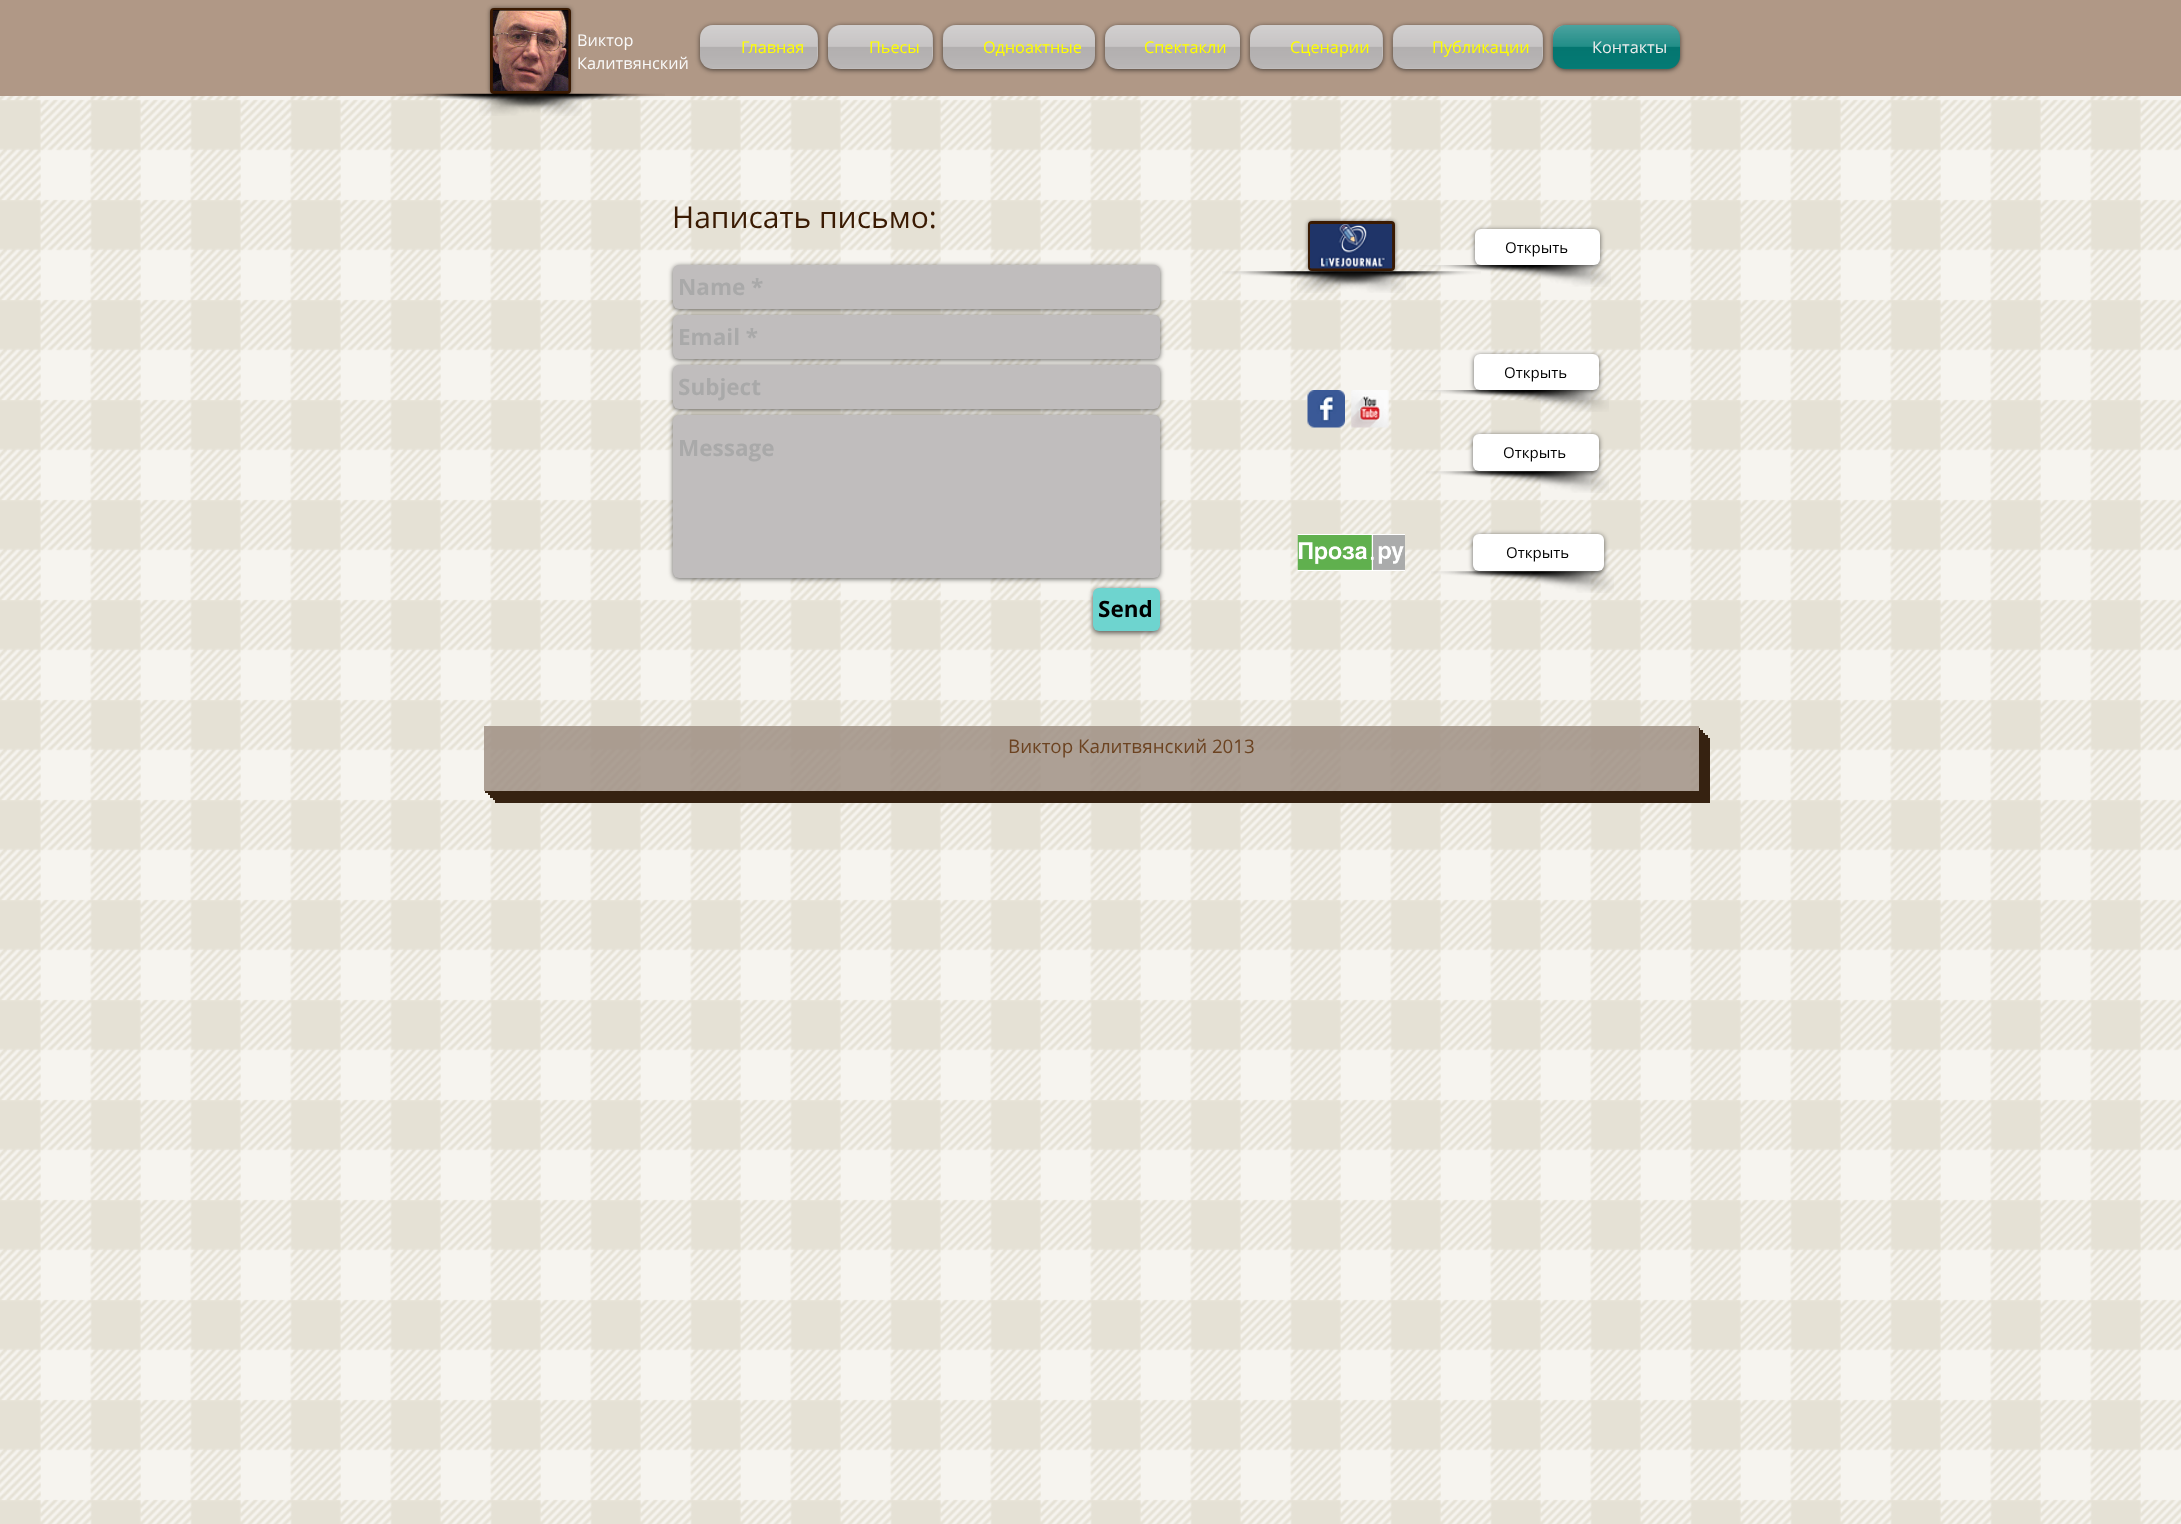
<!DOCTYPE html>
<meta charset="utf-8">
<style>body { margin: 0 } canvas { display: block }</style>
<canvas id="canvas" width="2181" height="1524"></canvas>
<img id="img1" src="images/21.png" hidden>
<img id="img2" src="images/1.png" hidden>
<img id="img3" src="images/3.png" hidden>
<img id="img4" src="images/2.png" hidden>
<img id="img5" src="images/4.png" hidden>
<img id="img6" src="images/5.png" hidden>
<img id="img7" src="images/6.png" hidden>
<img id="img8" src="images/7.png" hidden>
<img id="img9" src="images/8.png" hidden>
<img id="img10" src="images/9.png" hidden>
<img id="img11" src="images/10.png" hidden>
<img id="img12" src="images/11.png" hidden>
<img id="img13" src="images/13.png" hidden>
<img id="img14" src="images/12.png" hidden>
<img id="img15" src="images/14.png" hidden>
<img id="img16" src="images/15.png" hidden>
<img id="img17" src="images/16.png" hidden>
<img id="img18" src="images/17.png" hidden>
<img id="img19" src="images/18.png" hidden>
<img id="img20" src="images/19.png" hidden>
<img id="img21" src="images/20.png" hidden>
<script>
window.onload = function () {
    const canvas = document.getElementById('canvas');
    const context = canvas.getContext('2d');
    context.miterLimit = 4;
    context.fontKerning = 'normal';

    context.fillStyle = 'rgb(246, 244, 239)';
    context.fillRect(0, 0, 2181, 1524);
    context.fillStyle = 'rgb(176, 152, 134)';
    context.fillRect(0, 0, 2181, 96);
    context.drawImage(document.getElementById('img1'), 0, 96, 2181, 1428);
    context.fillStyle = 'rgba(0, 0, 0, 0.5)';
    context.filter = 'blur(2px)';
    context.beginPath();
    context.roundRect(490, 8, 81, 86, 4);
    context.fill();
    context.filter = 'none';
    context.beginPath();
    context.roundRect(491.5, 9.5, 78, 83, 2.5);
    context.strokeStyle = 'rgb(58, 26, 2)';
    context.lineWidth = 3;
    context.stroke();
    context.drawImage(document.getElementById('img2'), 492, 10, 77, 81);
    context.drawImage(document.getElementById('img3'), 479, 93, 186, 23);
    context.drawImage(document.getElementById('img4'), 396, 93, 186, 23);
    context.fillStyle = 'rgba(0, 0, 0, 0.6)';
    context.filter = 'blur(2.5px)';
    context.beginPath();
    context.roundRect(700, 26, 118, 44, 13);
    context.fill();
    context.filter = 'none';
    context.fillStyle = 'rgb(192, 189, 189)';
    context.beginPath();
    context.roundRect(700, 25, 118, 44, 13);
    context.fill();
    context.drawImage(document.getElementById('img5'), 700, 25, 117, 43);
    context.fillStyle = 'rgba(0, 0, 0, 0.6)';
    context.filter = 'blur(2.5px)';
    context.beginPath();
    context.roundRect(828, 26, 105, 44, 13);
    context.fill();
    context.filter = 'none';
    context.fillStyle = 'rgb(192, 189, 189)';
    context.beginPath();
    context.roundRect(828, 25, 105, 44, 13);
    context.fill();
    context.drawImage(document.getElementById('img6'), 827, 25, 105, 43);
    context.fillStyle = 'rgba(0, 0, 0, 0.6)';
    context.filter = 'blur(2.5px)';
    context.beginPath();
    context.roundRect(943, 26, 152, 44, 13);
    context.fill();
    context.filter = 'none';
    context.fillStyle = 'rgb(192, 189, 189)';
    context.beginPath();
    context.roundRect(943, 25, 152, 44, 13);
    context.fill();
    context.drawImage(document.getElementById('img7'), 942, 25, 153, 43);
    context.fillStyle = 'rgba(0, 0, 0, 0.6)';
    context.filter = 'blur(2.5px)';
    context.beginPath();
    context.roundRect(1105, 26, 135, 44, 13);
    context.fill();
    context.filter = 'none';
    context.fillStyle = 'rgb(192, 189, 189)';
    context.beginPath();
    context.roundRect(1105, 25, 135, 44, 13);
    context.fill();
    context.drawImage(document.getElementById('img8'), 1105, 25, 135, 43);
    context.fillStyle = 'rgba(0, 0, 0, 0.6)';
    context.filter = 'blur(2.5px)';
    context.beginPath();
    context.roundRect(1250, 26, 133, 44, 13);
    context.fill();
    context.filter = 'none';
    context.fillStyle = 'rgb(192, 189, 189)';
    context.beginPath();
    context.roundRect(1250, 25, 133, 44, 13);
    context.fill();
    context.drawImage(document.getElementById('img9'), 1250, 25, 132, 43);
    context.fillStyle = 'rgba(0, 0, 0, 0.6)';
    context.filter = 'blur(2.5px)';
    context.beginPath();
    context.roundRect(1393, 26, 150, 44, 13);
    context.fill();
    context.filter = 'none';
    context.fillStyle = 'rgb(192, 189, 189)';
    context.beginPath();
    context.roundRect(1393, 25, 150, 44, 13);
    context.fill();
    context.drawImage(document.getElementById('img10'), 1392, 25, 150, 43);
    context.fillStyle = 'rgba(0, 0, 0, 0.6)';
    context.filter = 'blur(2.5px)';
    context.beginPath();
    context.roundRect(1553, 26, 127, 44, 13);
    context.fill();
    context.filter = 'none';
    context.fillStyle = 'rgb(5, 127, 121)';
    context.beginPath();
    context.roundRect(1553, 25, 127, 44, 13);
    context.fill();
    context.drawImage(document.getElementById('img11'), 1552, 25, 128, 43);
    context.fillStyle = 'rgba(0, 0, 0, 0.5)';
    context.filter = 'blur(2px)';
    context.beginPath();
    context.roundRect(1308, 221, 87, 50, 4);
    context.fill();
    context.filter = 'none';
    context.beginPath();
    context.roundRect(1309.5, 222.5, 84, 47, 2.5);
    context.stroke();
    context.drawImage(document.getElementById('img12'), 1310, 224, 83, 45);
    context.drawImage(document.getElementById('img13'), 1297, 271, 184, 22);
    context.drawImage(document.getElementById('img14'), 1222, 271, 184, 22);
    context.drawImage(document.getElementById('img15'), 1419, 265, 192, 22);
    context.fillStyle = 'rgba(0, 0, 0, 0.6)';
    context.filter = 'blur(2.5px)';
    context.beginPath();
    context.roundRect(1475, 230, 125, 36, 6);
    context.fill();
    context.filter = 'none';
    context.fillStyle = 'rgb(255, 255, 255)';
    context.beginPath();
    context.roundRect(1475, 229, 125, 36, 6);
    context.fill();
    context.fillStyle = 'rgba(0, 0, 0, 0.6)';
    context.filter = 'blur(2.5px)';
    context.beginPath();
    context.roundRect(673, 266, 487, 44, 6);
    context.fill();
    context.filter = 'none';
    context.fillStyle = 'rgb(192, 189, 189)';
    context.beginPath();
    context.roundRect(673, 265, 487, 44, 6);
    context.fill();
    context.fillStyle = 'rgba(0, 0, 0, 0.6)';
    context.filter = 'blur(2.5px)';
    context.beginPath();
    context.roundRect(673, 316, 487, 44, 6);
    context.fill();
    context.filter = 'none';
    context.fillStyle = 'rgb(192, 189, 189)';
    context.beginPath();
    context.roundRect(673, 315, 487, 44, 6);
    context.fill();
    context.fillStyle = 'rgba(0, 0, 0, 0.6)';
    context.filter = 'blur(2.5px)';
    context.beginPath();
    context.roundRect(673, 366, 487, 44, 6);
    context.fill();
    context.filter = 'none';
    context.fillStyle = 'rgb(192, 189, 189)';
    context.beginPath();
    context.roundRect(673, 365, 487, 44, 6);
    context.fill();
    context.fillStyle = 'rgba(0, 0, 0, 0.6)';
    context.filter = 'blur(2.5px)';
    context.beginPath();
    context.roundRect(673, 416, 487, 163, 6);
    context.fill();
    context.filter = 'none';
    context.fillStyle = 'rgb(192, 189, 189)';
    context.beginPath();
    context.roundRect(673, 415, 487, 163, 6);
    context.fill();
    context.fillStyle = 'rgba(0, 0, 0, 0.6)';
    context.filter = 'blur(2.5px)';
    context.beginPath();
    context.roundRect(1093, 589, 67, 44, 6);
    context.fill();
    context.filter = 'none';
    context.fillStyle = 'rgb(110, 212, 207)';
    context.beginPath();
    context.roundRect(1093, 588, 67, 43, 6);
    context.fill();
    context.drawImage(document.getElementById('img16'), 1418, 390, 191, 22);
    context.fillStyle = 'rgba(0, 0, 0, 0.6)';
    context.filter = 'blur(2.5px)';
    context.beginPath();
    context.roundRect(1474, 355, 125, 36, 6);
    context.fill();
    context.filter = 'none';
    context.fillStyle = 'rgb(255, 255, 255)';
    context.beginPath();
    context.roundRect(1474, 354, 125, 36, 6);
    context.fill();
    context.drawImage(document.getElementById('img17'), 1307, 390, 38, 38);
    context.drawImage(document.getElementById('img18'), 1351, 390, 38, 38);
    context.drawImage(document.getElementById('img19'), 1426, 471, 183, 22);
    context.fillStyle = 'rgba(0, 0, 0, 0.6)';
    context.filter = 'blur(2.5px)';
    context.beginPath();
    context.roundRect(1473, 435, 126, 38, 6);
    context.fill();
    context.filter = 'none';
    context.fillStyle = 'rgb(255, 255, 255)';
    context.beginPath();
    context.roundRect(1473, 434, 126, 37, 6);
    context.fill();
    context.drawImage(document.getElementById('img20'), 1297, 534, 108, 37);
    context.drawImage(document.getElementById('img21'), 1431, 571, 183, 22);
    context.fillStyle = 'rgba(0, 0, 0, 0.6)';
    context.filter = 'blur(2.5px)';
    context.beginPath();
    context.roundRect(1473, 535, 131, 38, 6);
    context.fill();
    context.filter = 'none';
    context.fillStyle = 'rgb(255, 255, 255)';
    context.beginPath();
    context.roundRect(1473, 534, 131, 37, 6);
    context.fill();
    context.fillStyle = 'rgba(99, 72, 51, 0.72)';
    context.fillRect(484, 726, 1215, 65);
    context.fillStyle = 'rgb(54, 34, 17)';
    context.beginPath();
    context.moveTo(495, 791);
    context.lineTo(495, 803);
    context.lineTo(1710, 803);
    context.lineTo(1710, 738);
    context.lineTo(1699, 738);
    context.lineTo(1699, 791);
    context.closePath();
    context.fill();
    context.beginPath();
    context.moveTo(493, 791);
    context.lineTo(493, 800);
    context.lineTo(1708, 800);
    context.lineTo(1708, 735);
    context.lineTo(1699, 735);
    context.lineTo(1699, 791);
    context.closePath();
    context.fill();
    context.beginPath();
    context.moveTo(490, 791);
    context.lineTo(490, 798);
    context.lineTo(1705, 798);
    context.lineTo(1705, 733);
    context.lineTo(1699, 733);
    context.lineTo(1699, 791);
    context.closePath();
    context.fill();
    context.beginPath();
    context.moveTo(488, 791);
    context.lineTo(488, 795);
    context.lineTo(1703, 795);
    context.lineTo(1703, 730);
    context.lineTo(1699, 730);
    context.lineTo(1699, 791);
    context.closePath();
    context.fill();
    context.beginPath();
    context.moveTo(485, 791);
    context.lineTo(485, 793);
    context.lineTo(1700, 793);
    context.lineTo(1700, 728);
    context.lineTo(1699, 728);
    context.lineTo(1699, 791);
    context.closePath();
    context.fill();
    context.fillStyle = 'rgba(236, 236, 236, 0.34)';
    context.fillRect(484, 726, 1215, 65);
    context.font = '16.25px Open Sans';
    context.fillStyle = 'rgb(250, 250, 250)';
    context.fillText('Виктор', 577, 46);
    context.fillText('Калитвянский', 577, 69);
    context.fillStyle = 'rgb(255, 255, 0)';
    context.fillText('Главная', 741, 53);
    context.fillText('Пьесы', 869, 53);
    context.fillText('Одноактные', 983, 53);
    context.fillText('Спектакли', 1144, 53);
    context.fillText('Сценарии', 1290, 53);
    context.fillText('Публикации', 1432, 53);
    context.fillStyle = 'rgb(236, 236, 236)';
    context.fillText('Контакты', 1592, 53);
    context.font = '30px Open Sans';
    context.fillStyle = 'rgb(58, 26, 2)';
    context.fillText('Написать письмо:', 672, 228);
    context.font = '15px Open Sans';
    context.fillStyle = 'rgb(0, 0, 0)';
    context.fillText('Открыть', 1505, 253);
    context.font = 'bold 22.5px Open Sans';
    context.fillStyle = 'rgb(169, 169, 169)';
    context.fillText('Name *', 678, 295);
    context.fillText('Email *', 678, 345);
    context.fillText('Subject', 678, 395);
    context.fillText('Message', 678, 456);
    context.fillStyle = 'rgb(0, 0, 0)';
    context.fillText('Send', 1098, 617);
    context.font = '15px Open Sans';
    context.fillText('Открыть', 1504, 378);
    context.fillText('Открыть', 1503, 458);
    context.fillText('Открыть', 1506, 558);
    context.font = '18.75px Open Sans';
    context.fillStyle = 'rgb(108, 67, 33)';
    context.fillText('Виктор Калитвянский 2013', 1008, 753);
};
</script>
